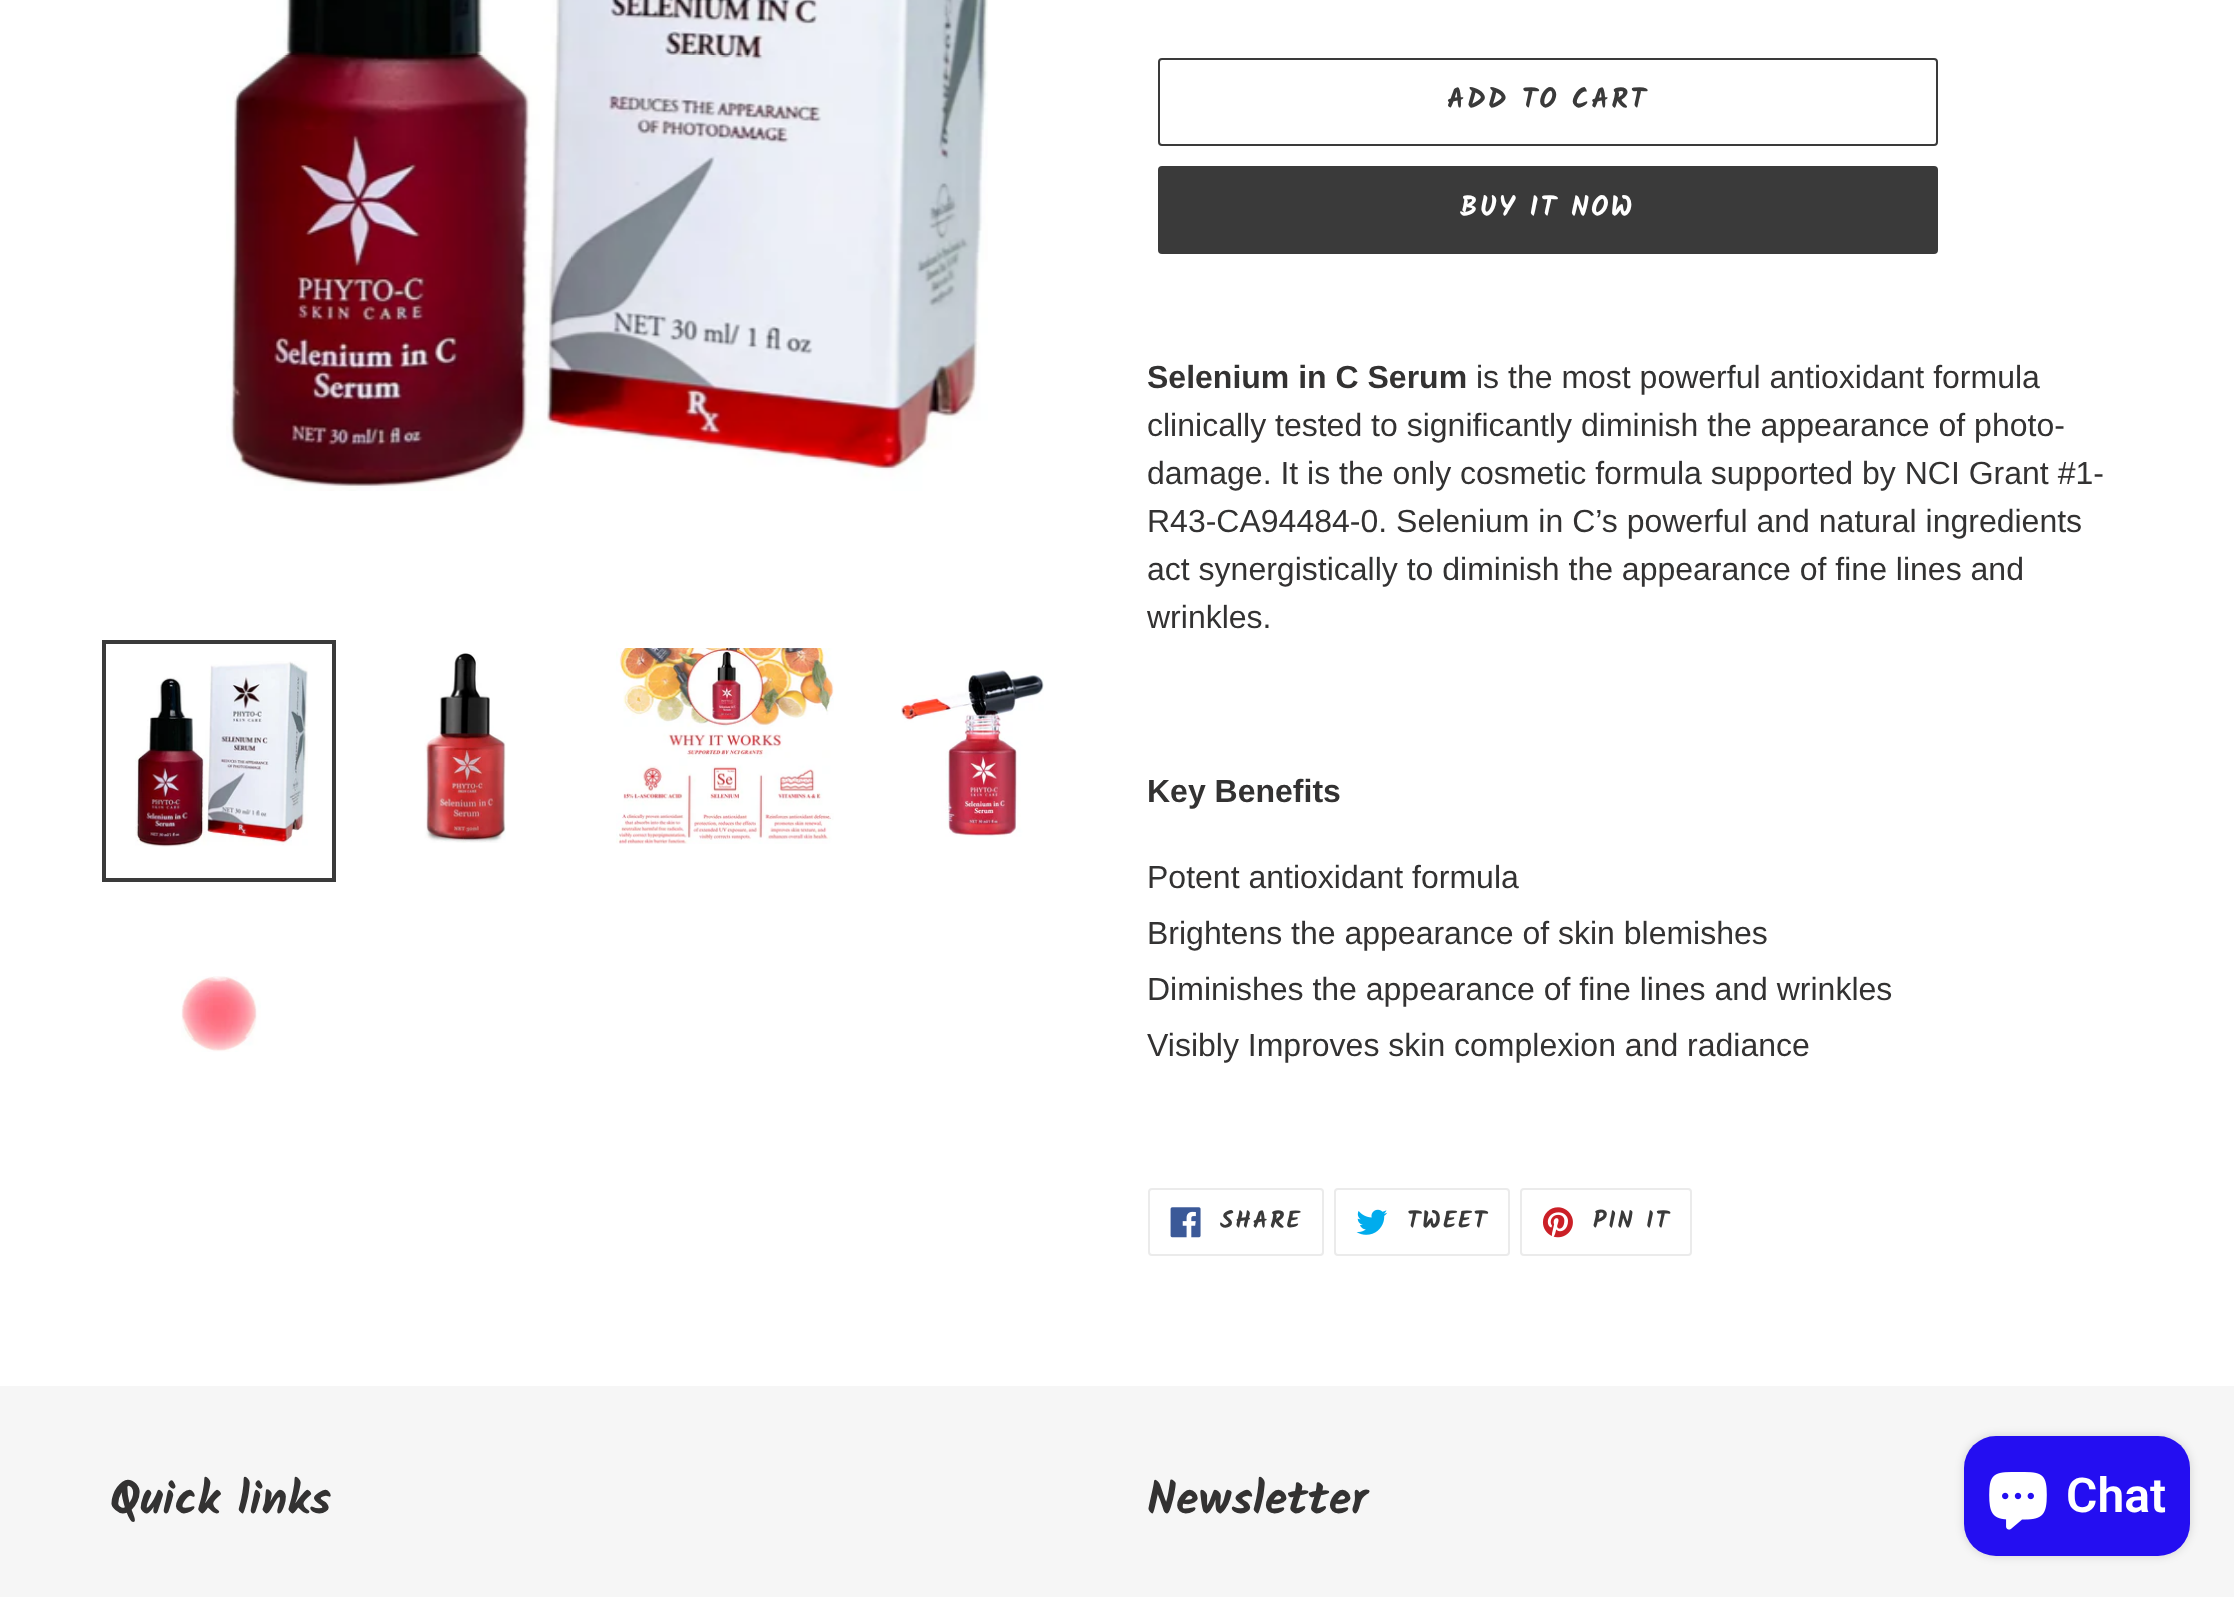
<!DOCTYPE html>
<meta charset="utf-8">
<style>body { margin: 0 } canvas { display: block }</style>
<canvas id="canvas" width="2234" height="1597"></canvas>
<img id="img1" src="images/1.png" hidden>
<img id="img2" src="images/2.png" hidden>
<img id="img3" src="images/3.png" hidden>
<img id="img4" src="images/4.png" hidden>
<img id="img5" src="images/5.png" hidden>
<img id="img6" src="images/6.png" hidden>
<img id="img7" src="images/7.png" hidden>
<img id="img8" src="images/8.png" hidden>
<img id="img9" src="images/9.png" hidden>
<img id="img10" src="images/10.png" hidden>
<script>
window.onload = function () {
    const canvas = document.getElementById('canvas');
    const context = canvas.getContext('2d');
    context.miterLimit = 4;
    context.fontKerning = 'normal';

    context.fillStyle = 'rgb(255, 255, 255)';
    context.fillRect(0, 0, 2234, 1597);
    context.drawImage(document.getElementById('img1'), 226, 0, 762, 491);
    context.strokeStyle = 'rgb(58, 58, 58)';
    context.lineWidth = 4;
    context.strokeRect(104, 642, 230, 238);
    context.drawImage(document.getElementById('img2'), 135, 661, 173, 186);
    context.drawImage(document.getElementById('img3'), 424, 652, 82, 191);
    context.drawImage(document.getElementById('img4'), 616, 648, 218, 196);
    context.drawImage(document.getElementById('img5'), 901, 670, 143, 167);
    context.drawImage(document.getElementById('img6'), 181, 976, 80, 76);
    context.beginPath();
    context.roundRect(1159, 59, 778, 86, 3);
    context.lineWidth = 2;
    context.stroke();
    context.fillStyle = 'rgb(58, 58, 58)';
    context.beginPath();
    context.roundRect(1158, 166, 780, 88, 4);
    context.fill();
    context.beginPath();
    context.roundRect(1149, 1189, 174, 66, 3);
    context.strokeStyle = 'rgb(235, 235, 235)';
    context.stroke();
    context.drawImage(document.getElementById('img7'), 1170, 1207, 31, 31);
    context.beginPath();
    context.roundRect(1335, 1189, 174, 66, 3);
    context.stroke();
    context.drawImage(document.getElementById('img8'), 1356, 1209, 32, 26);
    context.beginPath();
    context.roundRect(1521, 1189, 170, 66, 3);
    context.stroke();
    context.drawImage(document.getElementById('img9'), 1542, 1207, 31, 31);
    context.fillStyle = 'rgb(246, 246, 246)';
    context.fillRect(0, 1386, 2234, 211);
    context.fillStyle = 'rgba(0, 0, 0, 0.15)';
    context.filter = 'blur(5px)';
    context.beginPath();
    context.roundRect(1964, 1436, 226, 120, 32);
    context.fill();
    context.filter = 'none';
    context.fillStyle = 'rgb(36, 14, 241)';
    context.beginPath();
    context.roundRect(1964, 1436, 226, 120, 32);
    context.fill();
    context.drawImage(document.getElementById('img10'), 1989, 1472, 58, 58);
    context.letterSpacing = '2.25px';
    context.font = 'bold 28px Kalam';
    context.fillStyle = 'rgb(58, 58, 58)';
    context.fillText('ADD TO CART', 1447, 108);
    context.fillStyle = 'rgb(255, 255, 255)';
    context.fillText('BUY IT NOW', 1460, 216);
    context.letterSpacing = '0px';
    context.font = 'bold 32px Liberation Sans';
    context.fillStyle = 'rgb(51, 50, 50)';
    context.fillText('Selenium in C Serum', 1147, 388);
    context.font = '32px Liberation Sans';
    context.fillText('is the most powerful antioxidant formula', 1476, 388);
    context.fillText('clinically tested to significantly diminish the appearance of photo-', 1147, 436);
    context.fillText('damage. It is the only cosmetic formula supported by NCI Grant #1-', 1147, 484);
    context.fillText('R43-CA94484-0. Selenium in C’s powerful and natural ingredients', 1147, 532);
    context.fillText('act synergistically to diminish the appearance of ﬁne lines and', 1147, 580);
    context.fillText('wrinkles.', 1147, 628);
    context.font = 'bold 32px Liberation Sans';
    context.fillText('Key Benefits', 1147, 802);
    context.font = '32px Liberation Sans';
    context.fillText('Potent antioxidant formula', 1147, 888);
    context.fillText('Brightens the appearance of skin blemishes', 1147, 944);
    context.fillText('Diminishes the appearance of fine lines and wrinkles', 1147, 1000);
    context.fillText('Visibly Improves skin complexion and radiance', 1147, 1056);
    context.letterSpacing = '2px';
    context.font = 'bold 24px Kalam';
    context.fillStyle = 'rgb(58, 58, 58)';
    context.fillText('SHARE', 1220, 1228);
    context.fillText('TWEET', 1407, 1228);
    context.fillText('PIN IT', 1593, 1228);
    context.letterSpacing = '0px';
    context.font = 'bold 46px Kalam';
    context.fillStyle = 'rgb(51, 50, 50)';
    context.fillText('Quick links', 110, 1514);
    context.fillText('Newsletter', 1147, 1514);
    context.font = '600 48px Roboto';
    context.fillStyle = 'rgb(255, 255, 255)';
    context.fillText('Chat', 2066, 1512);
};
</script>
